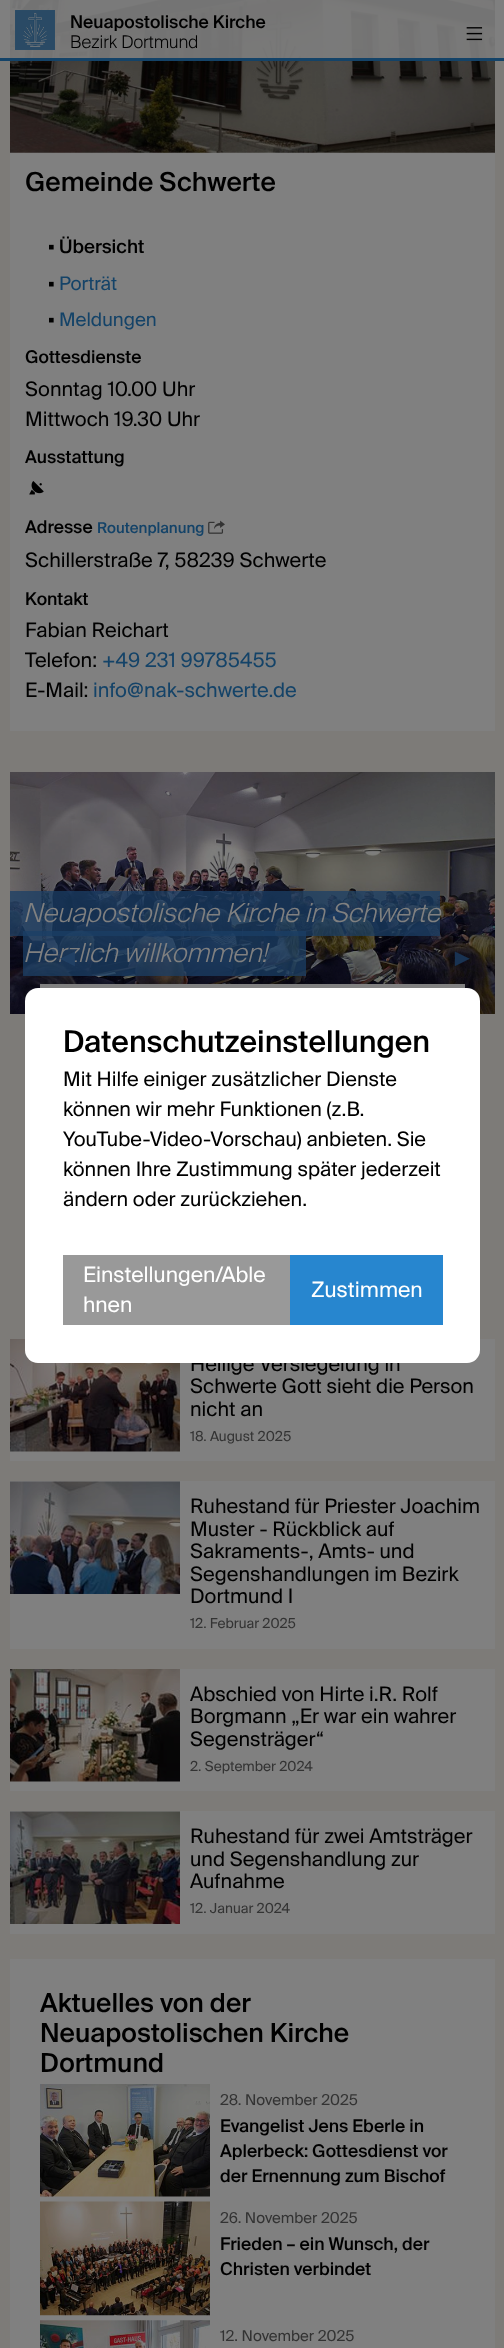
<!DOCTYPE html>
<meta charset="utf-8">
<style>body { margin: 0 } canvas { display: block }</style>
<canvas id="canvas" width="504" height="2348"></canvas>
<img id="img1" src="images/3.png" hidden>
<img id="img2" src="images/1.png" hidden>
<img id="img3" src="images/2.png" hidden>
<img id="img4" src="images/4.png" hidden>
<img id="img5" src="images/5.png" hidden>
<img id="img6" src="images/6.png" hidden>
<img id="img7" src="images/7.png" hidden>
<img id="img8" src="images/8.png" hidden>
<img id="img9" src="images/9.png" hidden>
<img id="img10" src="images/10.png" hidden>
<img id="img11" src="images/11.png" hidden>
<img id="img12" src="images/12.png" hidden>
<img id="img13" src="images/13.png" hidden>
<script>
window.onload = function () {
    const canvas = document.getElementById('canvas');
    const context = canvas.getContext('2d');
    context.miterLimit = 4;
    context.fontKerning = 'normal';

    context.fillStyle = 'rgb(125, 123, 120)';
    context.fillRect(0, 0, 504, 2348);
    context.fillStyle = 'rgb(128, 128, 128)';
    context.fillRect(10, 152, 485, 579);
    context.drawImage(document.getElementById('img1'), 10, 0, 485, 153);
    context.fillStyle = 'rgba(128, 128, 128, 0.9)';
    context.fillRect(0, 0, 504, 58);
    context.fillStyle = 'rgb(20, 67, 104)';
    context.fillRect(0, 58, 504, 3);
    context.drawImage(document.getElementById('img2'), 15, 10, 40, 40);
    context.drawImage(document.getElementById('img3'), 466, 27, 17, 14);
    context.drawImage(document.getElementById('img4'), 29, 481, 15, 14);
    context.drawImage(document.getElementById('img5'), 208, 520, 17, 14);
    context.drawImage(document.getElementById('img6'), 10, 772, 485, 242);
    context.fillStyle = 'rgba(27, 63, 102, 0.75)';
    context.fillRect(10, 891, 430, 45);
    context.fillRect(23, 931, 283, 45);
    context.fillStyle = 'rgb(128, 128, 128)';
    context.fillRect(40, 984, 425, 4);
    context.fillRect(10, 1339, 485, 122);
    context.drawImage(document.getElementById('img7'), 10, 1339, 170, 113);
    context.fillRect(10, 1481, 485, 168);
    context.drawImage(document.getElementById('img8'), 10, 1481, 170, 113);
    context.fillRect(10, 1669, 485, 122);
    context.drawImage(document.getElementById('img9'), 10, 1669, 170, 113);
    context.fillRect(10, 1811, 485, 123);
    context.drawImage(document.getElementById('img10'), 10, 1811, 170, 113);
    context.fillRect(10, 1959, 485, 389);
    context.drawImage(document.getElementById('img11'), 40, 2084, 170, 113);
    context.drawImage(document.getElementById('img12'), 40, 2201, 170, 115);
    context.drawImage(document.getElementById('img13'), 40, 2320, 170, 28);
    context.font = '500 17.5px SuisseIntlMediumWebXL';
    context.fillStyle = 'rgb(0, 0, 0)';
    context.fillText('Neuapostolische Kirche', 70, 28);
    context.font = '300 17.5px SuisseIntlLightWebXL';
    context.fillText('Bezirk Dortmund', 70, 48);
    context.font = '500 26.25px SuisseIntlMediumWebXL';
    context.fillText('Gemeinde Schwerte', 25, 191);
    context.font = '18.75px Liberation Sans';
    context.fillText('▪', 48, 253);
    context.font = '500 18.75px SuisseIntlMediumWebXL';
    context.fillText('Übersicht', 59, 253);
    context.font = '18.75px Liberation Sans';
    context.fillText('▪', 48, 290);
    context.font = '18.75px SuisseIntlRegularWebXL';
    context.fillStyle = 'rgb(20, 67, 104)';
    context.fillText('Porträt', 59, 290);
    context.font = '18.75px Liberation Sans';
    context.fillStyle = 'rgb(0, 0, 0)';
    context.fillText('▪', 48, 326);
    context.font = '18.75px SuisseIntlRegularWebXL';
    context.fillStyle = 'rgb(20, 67, 104)';
    context.fillText('Meldungen', 59, 326);
    context.font = '500 17.5px SuisseIntlMediumWebXL';
    context.fillStyle = 'rgb(0, 0, 0)';
    context.fillText('Gottesdienste', 25, 363);
    context.font = '20px SuisseIntlRegularWebXL';
    context.fillText('Sonntag 10.00 Uhr', 25, 396);
    context.fillText('Mittwoch 19.30 Uhr', 25, 426);
    context.font = '500 17.5px SuisseIntlMediumWebXL';
    context.fillText('Ausstattung', 25, 463);
    context.fillText('Adresse', 25, 533);
    context.font = '500 15px SuisseIntlMediumWebXL';
    context.fillStyle = 'rgb(20, 67, 104)';
    context.fillText('Routenplanung', 97, 533);
    context.font = '20px SuisseIntlRegularWebXL';
    context.fillStyle = 'rgb(0, 0, 0)';
    context.fillText('Schillerstraße 7, 58239 Schwerte', 25, 567);
    context.font = '500 17.5px SuisseIntlMediumWebXL';
    context.fillText('Kontakt', 25, 605);
    context.font = '20px SuisseIntlRegularWebXL';
    context.fillText('Fabian Reichart', 25, 637);
    context.fillText('Telefon:', 25, 667);
    context.fillStyle = 'rgb(20, 67, 104)';
    context.fillText('+49 231 99785455', 102, 667);
    context.fillStyle = 'rgb(0, 0, 0)';
    context.fillText('E-Mail:', 25, 697);
    context.fillStyle = 'rgb(20, 67, 104)';
    context.fillText('info@nak-schwerte.de', 93, 697);
    context.font = 'italic 300 26.25px SuisseIntlLightWebXL';
    context.fillStyle = 'rgb(128, 128, 128)';
    context.fillText('Neuapostolische Kirche in Schwerte', 23, 922);
    context.fillText('Herzlich willkommen!', 23, 962);
    context.font = '25px Liberation Serif';
    context.fillStyle = 'rgb(33, 64, 100)';
    context.fillText('◄', 55, 966);
    context.fillStyle = 'rgb(25, 51, 82)';
    context.fillText('►', 450, 966);
    context.font = '20px SuisseIntlRegularWebXL';
    context.fillStyle = 'rgb(0, 0, 0)';
    context.fillText('Heilige Versiegelung in', 190, 1371);
    context.fillText('Schwerte Gott sieht die Person', 190, 1393);
    context.fillText('nicht an', 190, 1416);
    context.font = '13.75px SuisseIntlRegularWebXL';
    context.fillStyle = 'rgb(51, 51, 51)';
    context.fillText('18. August 2025', 190, 1441);
    context.font = '20px SuisseIntlRegularWebXL';
    context.fillStyle = 'rgb(0, 0, 0)';
    context.fillText('Ruhestand für Priester Joachim', 190, 1513);
    context.fillText('Muster - Rückblick auf', 190, 1536);
    context.fillText('Sakraments-, Amts- und', 190, 1558);
    context.fillText('Segenshandlungen im Bezirk', 190, 1581);
    context.fillText('Dortmund I', 190, 1603);
    context.font = '13.75px SuisseIntlRegularWebXL';
    context.fillStyle = 'rgb(51, 51, 51)';
    context.fillText('12. Februar 2025', 190, 1628);
    context.font = '20px SuisseIntlRegularWebXL';
    context.fillStyle = 'rgb(0, 0, 0)';
    context.fillText('Abschied von Hirte i.R. Rolf', 190, 1701);
    context.fillText('Borgmann „Er war ein wahrer', 190, 1723);
    context.fillText('Segensträger“', 190, 1746);
    context.font = '13.75px SuisseIntlRegularWebXL';
    context.fillStyle = 'rgb(51, 51, 51)';
    context.fillText('2. September 2024', 190, 1771);
    context.font = '20px SuisseIntlRegularWebXL';
    context.fillStyle = 'rgb(0, 0, 0)';
    context.fillText('Ruhestand für zwei Amtsträger', 190, 1843);
    context.fillText('und Segenshandlung zur', 190, 1866);
    context.fillText('Aufnahme', 190, 1888);
    context.font = '13.75px SuisseIntlRegularWebXL';
    context.fillStyle = 'rgb(51, 51, 51)';
    context.fillText('12. Januar 2024', 190, 1913);
    context.font = '500 26.25px SuisseIntlMediumWebXL';
    context.fillStyle = 'rgb(0, 0, 0)';
    context.fillText('Aktuelles von der', 40, 2012);
    context.fillText('Neuapostolischen Kirche', 40, 2042);
    context.fillText('Dortmund', 40, 2072);
    context.font = '15px SuisseIntlRegularWebXL';
    context.fillStyle = 'rgb(51, 51, 51)';
    context.fillText('28. November 2025', 220, 2105);
    context.font = '500 17.5px SuisseIntlMediumWebXL';
    context.fillStyle = 'rgb(0, 0, 0)';
    context.fillText('Evangelist Jens Eberle in', 220, 2132);
    context.fillText('Aplerbeck: Gottesdienst vor', 220, 2157);
    context.fillText('der Ernennung zum Bischof', 220, 2182);
    context.font = '15px SuisseIntlRegularWebXL';
    context.fillStyle = 'rgb(51, 51, 51)';
    context.fillText('26. November 2025', 220, 2223);
    context.font = '500 17.5px SuisseIntlMediumWebXL';
    context.fillStyle = 'rgb(0, 0, 0)';
    context.fillText('Frieden – ein Wunsch, der', 220, 2250);
    context.fillText('Christen verbindet', 220, 2275);
    context.font = '15px SuisseIntlRegularWebXL';
    context.fillStyle = 'rgb(51, 51, 51)';
    context.fillText('12. November 2025', 220, 2341);
    context.fillStyle = 'rgb(255, 255, 255)';
    context.beginPath();
    context.roundRect(25, 988, 455, 375, 13);
    context.fill();
    context.font = '500 30px SuisseIntlMediumWebXL';
    context.fillStyle = 'rgb(0, 0, 0)';
    context.fillText('Datenschutzeinstellungen', 63, 1052);
    context.font = '20px SuisseIntlRegularWebXL';
    context.fillText('Mit Hilfe einiger zusätzlicher Dienste', 63, 1086);
    context.fillText('können wir mehr Funktionen (z.B.', 63, 1116);
    context.fillText('YouTube-Video-Vorschau) anbieten. Sie', 63, 1146);
    context.fillText('können Ihre Zustimmung später jederzeit', 63, 1176);
    context.fillText('ändern oder zurückziehen.', 63, 1206);
    context.fillStyle = 'rgb(153, 153, 153)';
    context.fillRect(63, 1255, 227, 70);
    context.font = '21.25px SuisseIntlRegularWebXL';
    context.fillStyle = 'rgb(255, 255, 255)';
    context.fillText('Einstellungen/Able', 83, 1282);
    context.fillText('hnen', 83, 1312);
    context.fillStyle = 'rgb(39, 134, 207)';
    context.fillRect(290, 1255, 153, 70);
    context.fillStyle = 'rgb(255, 255, 255)';
    context.fillText('Zustimmen', 311, 1297);
};
</script>
